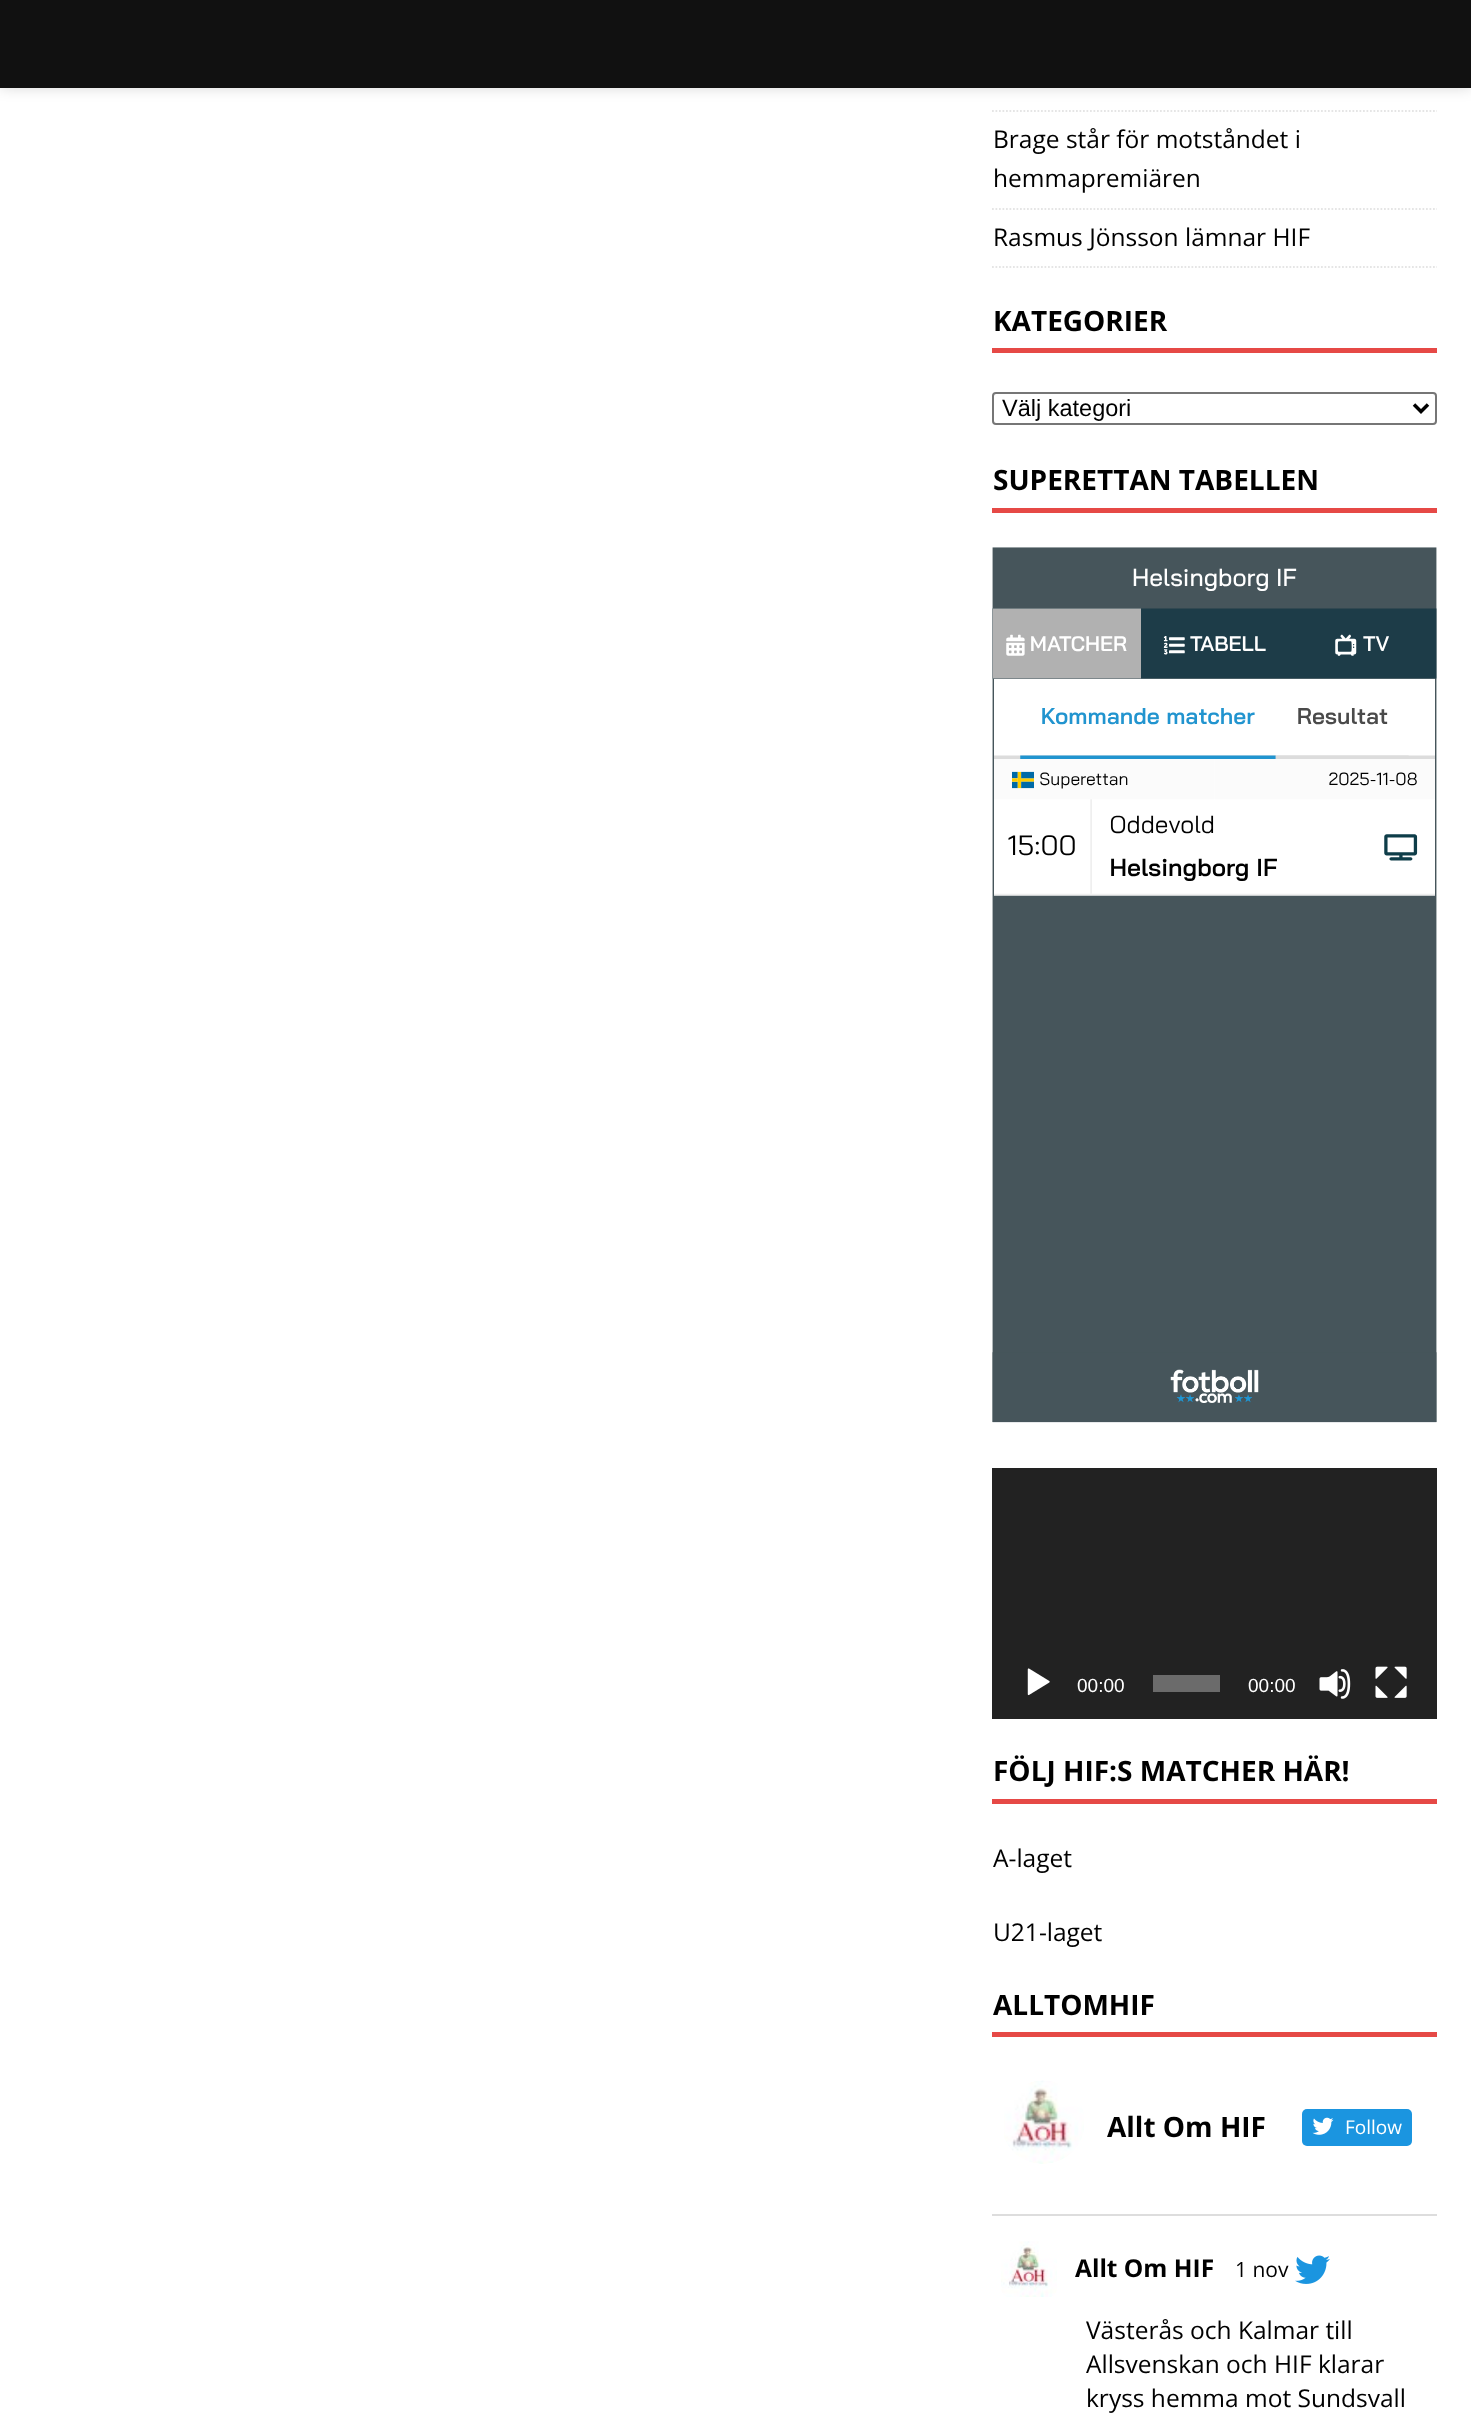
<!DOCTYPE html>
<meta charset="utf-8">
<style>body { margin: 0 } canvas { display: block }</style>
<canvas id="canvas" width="1471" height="2413"></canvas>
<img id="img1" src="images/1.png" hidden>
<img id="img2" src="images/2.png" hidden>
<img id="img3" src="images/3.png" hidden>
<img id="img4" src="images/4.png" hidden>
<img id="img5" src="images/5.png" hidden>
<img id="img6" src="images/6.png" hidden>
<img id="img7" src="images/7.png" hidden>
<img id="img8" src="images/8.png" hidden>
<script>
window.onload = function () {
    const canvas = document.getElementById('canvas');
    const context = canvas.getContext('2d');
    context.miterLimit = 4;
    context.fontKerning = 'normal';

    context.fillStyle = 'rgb(255, 255, 255)';
    context.fillRect(0, 0, 1471, 2413);
    context.fillStyle = 'rgba(0, 0, 0, 0.15)';
    context.filter = 'blur(7px)';
    context.beginPath();
    context.rect(0, 0, 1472, 88);
    context.fill();
    context.filter = 'none';
    context.fillStyle = 'rgb(17, 17, 17)';
    context.fillRect(0, 0, 1471, 88);
    context.beginPath();
    context.moveTo(992, 111);
    context.lineTo(1437, 111);
    context.strokeStyle = 'rgb(229, 229, 229)';
    context.lineWidth = 1.8;
    context.setLineDash([1.75, 1.75]);
    context.stroke();
    context.beginPath();
    context.moveTo(992, 209);
    context.lineTo(1437, 209);
    context.stroke();
    context.beginPath();
    context.moveTo(992, 267);
    context.lineTo(1437, 267);
    context.stroke();
    context.fillStyle = 'rgb(230, 73, 70)';
    context.fillRect(992, 348, 445, 5);
    context.beginPath();
    context.roundRect(993, 393, 443, 31, 3);
    context.strokeStyle = 'rgb(118, 118, 118)';
    context.lineWidth = 2;
    context.setLineDash([]);
    context.stroke();
    context.beginPath();
    context.moveTo(1414, 404.5);
    context.lineTo(1421, 411.5);
    context.lineTo(1428, 404.5);
    context.strokeStyle = 'rgb(0, 0, 0)';
    context.lineWidth = 3.5;
    context.stroke();
    context.fillRect(992, 508, 445, 5);
    context.drawImage(document.getElementById('img1'), 992, 547, 445, 876);
    context.fillStyle = 'rgb(34, 34, 34)';
    context.fillRect(992, 1468, 445, 251);
    context.drawImage(document.getElementById('img2'), 1027, 1668, 23, 28);
    context.fillStyle = 'rgb(107, 107, 107)';
    context.fillRect(1153, 1675, 67, 17);
    context.drawImage(document.getElementById('img3'), 1319, 1669, 32, 30);
    context.drawImage(document.getElementById('img4'), 1375, 1666, 32, 32);
    context.fillStyle = 'rgb(230, 73, 70)';
    context.fillRect(992, 1799, 445, 5);
    context.fillRect(992, 2032, 445, 5);
    context.fillStyle = 'rgb(221, 221, 221)';
    context.fillRect(992, 2214, 445, 2);
    context.drawImage(document.getElementById('img5'), 1004, 2080, 80, 84);
    context.fillStyle = 'rgb(27, 149, 224)';
    context.beginPath();
    context.roundRect(1302, 2109, 110, 37, 5);
    context.fill();
    context.drawImage(document.getElementById('img6'), 1312, 2117, 22, 18);
    context.drawImage(document.getElementById('img7'), 1001, 2241, 56, 56);
    context.drawImage(document.getElementById('img8'), 1295, 2255, 35, 29);
    context.font = '24.5px Open Sans';
    context.fillStyle = 'rgb(0, 0, 0)';
    context.fillText('Brage står för motståndet i', 993, 148);
    context.fillText('hemmapremiären', 993, 187);
    context.fillText('Rasmus Jönsson lämnar HIF', 993, 246);
    context.font = 'bold 28px Open Sans';
    context.fillText('KATEGORIER', 993, 331);
    context.font = '23.5px Liberation Sans';
    context.fillText('Välj kategori', 1002, 416);
    context.font = 'bold 28px Open Sans';
    context.fillText('SUPERETTAN TABELLEN', 993, 490);
    context.font = '19px Liberation Sans';
    context.fillStyle = 'rgb(255, 255, 255)';
    context.fillText('00:00', 1077, 1692);
    context.fillText('00:00', 1248, 1692);
    context.font = 'bold 28px Open Sans';
    context.fillStyle = 'rgb(0, 0, 0)';
    context.fillText('FÖLJ HIF:S MATCHER HÄR!', 993, 1781);
    context.font = '24.5px Open Sans';
    context.fillText('A-laget', 993, 1867);
    context.fillText('U21-laget', 993, 1941);
    context.font = 'bold 28px Open Sans';
    context.fillText('ALLTOMHIF', 993, 2015);
    context.fillText('Allt Om HIF', 1107, 2137);
    context.font = '19px Open Sans';
    context.fillStyle = 'rgb(255, 255, 255)';
    context.fillText('Follow', 1345, 2134);
    context.font = 'bold 24.5px Open Sans';
    context.fillStyle = 'rgb(0, 0, 0)';
    context.fillText('Allt Om HIF', 1075, 2277);
    context.font = '21px Open Sans';
    context.fillText('1 nov', 1235, 2277);
    context.font = '24.5px Open Sans';
    context.fillText('Västerås och Kalmar till', 1086, 2339);
    context.fillText('Allsvenskan och HIF klarar', 1086, 2373);
    context.fillText('kryss hemma mot Sundsvall', 1086, 2407);
};
</script>
